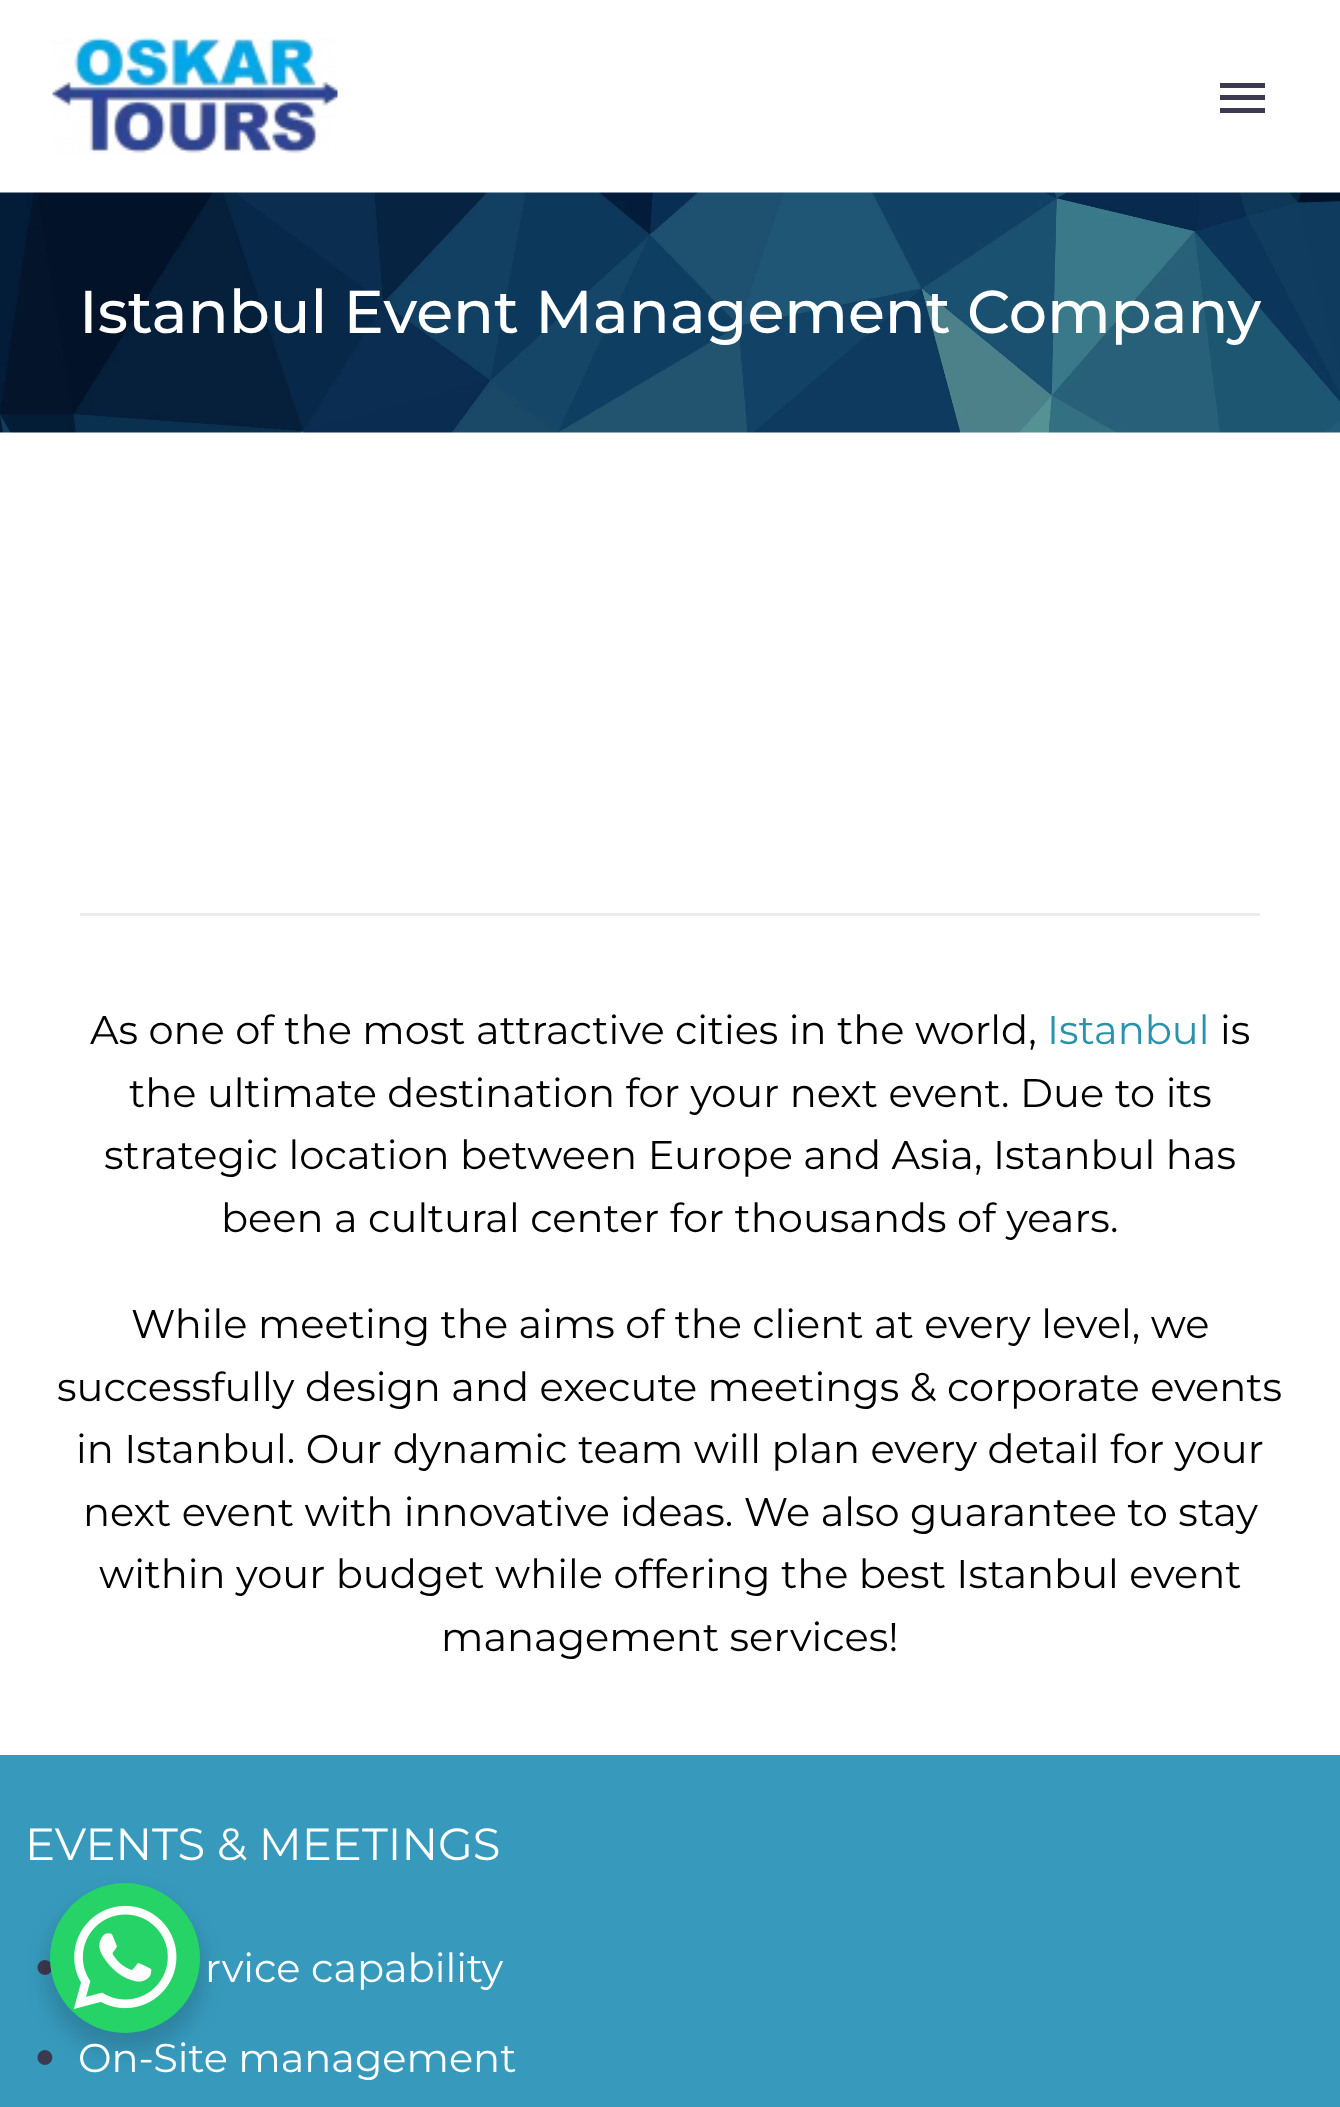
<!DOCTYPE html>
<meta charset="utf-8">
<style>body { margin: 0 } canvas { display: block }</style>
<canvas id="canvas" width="1340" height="2107"></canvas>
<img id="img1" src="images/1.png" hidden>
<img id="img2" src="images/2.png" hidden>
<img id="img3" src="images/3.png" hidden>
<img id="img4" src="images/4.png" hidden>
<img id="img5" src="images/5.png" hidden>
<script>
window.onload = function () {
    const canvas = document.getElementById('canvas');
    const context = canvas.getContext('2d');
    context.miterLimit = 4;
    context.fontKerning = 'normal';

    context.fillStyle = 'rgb(255, 255, 255)';
    context.fillRect(0, 0, 1340, 2107);
    context.drawImage(document.getElementById('img1'), 52, 37, 286, 117);
    context.fillStyle = 'rgb(60, 57, 80)';
    context.fillRect(1220, 83, 45, 5);
    context.fillRect(1220, 95, 45, 5);
    context.fillRect(1220, 108, 45, 5);
    context.drawImage(document.getElementById('img2'), 0, 192, 1340, 241);
    context.fillStyle = 'rgb(235, 235, 235)';
    context.fillRect(80, 913, 1180, 3);
    context.fillStyle = 'rgb(55, 154, 189)';
    context.fillRect(0, 1755, 1340, 352);
    context.drawImage(document.getElementById('img3'), 37, 1960, 15, 15);
    context.drawImage(document.getElementById('img4'), 37, 2050, 16, 15);
    context.fillStyle = 'rgba(0, 0, 0, 0.15)';
    context.filter = 'blur(10px)';
    context.beginPath();
    context.roundRect(45, 1893, 160, 160, 80);
    context.fill();
    context.filter = 'none';
    context.fillStyle = 'rgb(37, 211, 102)';
    context.beginPath();
    context.arc(125, 1958, 75, 0, 2 * Math.PI);
    context.fill();
    context.drawImage(document.getElementById('img5'), 73, 1905, 104, 104);
    context.font = '500 60.25px Montserrat';
    context.fillStyle = 'rgb(255, 255, 255)';
    context.fillText('Istanbul Event Management Company', 79, 333);
    context.font = '40px Montserrat';
    context.fillStyle = 'rgb(0, 0, 0)';
    context.fillText('As one of the most attractive cities in the world,', 90, 1044);
    context.fillStyle = 'rgb(40, 147, 170)';
    context.fillText('Istanbul', 1047, 1044);
    context.fillStyle = 'rgb(0, 0, 0)';
    context.fillText('is', 1220, 1044);
    context.fillText('the ultimate destination for your next event. Due to its', 129, 1107);
    context.fillText('strategic location between Europe and Asia, Istanbul has', 104, 1169);
    context.fillText('been a cultural center for thousands of years.', 221, 1232);
    context.fillText('While meeting the aims of the client at every level, we', 131, 1338);
    context.fillText('successfully design and execute meetings & corporate events', 57, 1401);
    context.fillText('in Istanbul. Our dynamic team will plan every detail for your', 76, 1463);
    context.fillText('next event with innovative ideas. We also guarantee to stay', 83, 1526);
    context.fillText('within your budget while offering the best Istanbul event', 99, 1588);
    context.fillText('management services!', 441, 1651);
    context.font = '45px Montserrat';
    context.fillStyle = 'rgb(255, 255, 255)';
    context.fillText('EVENTS & MEETINGS', 25, 1860);
    context.font = '40px Montserrat';
    context.fillText('rvice capability', 205, 1982);
    context.fillText('On-Site management', 78, 2072);
};
</script>
